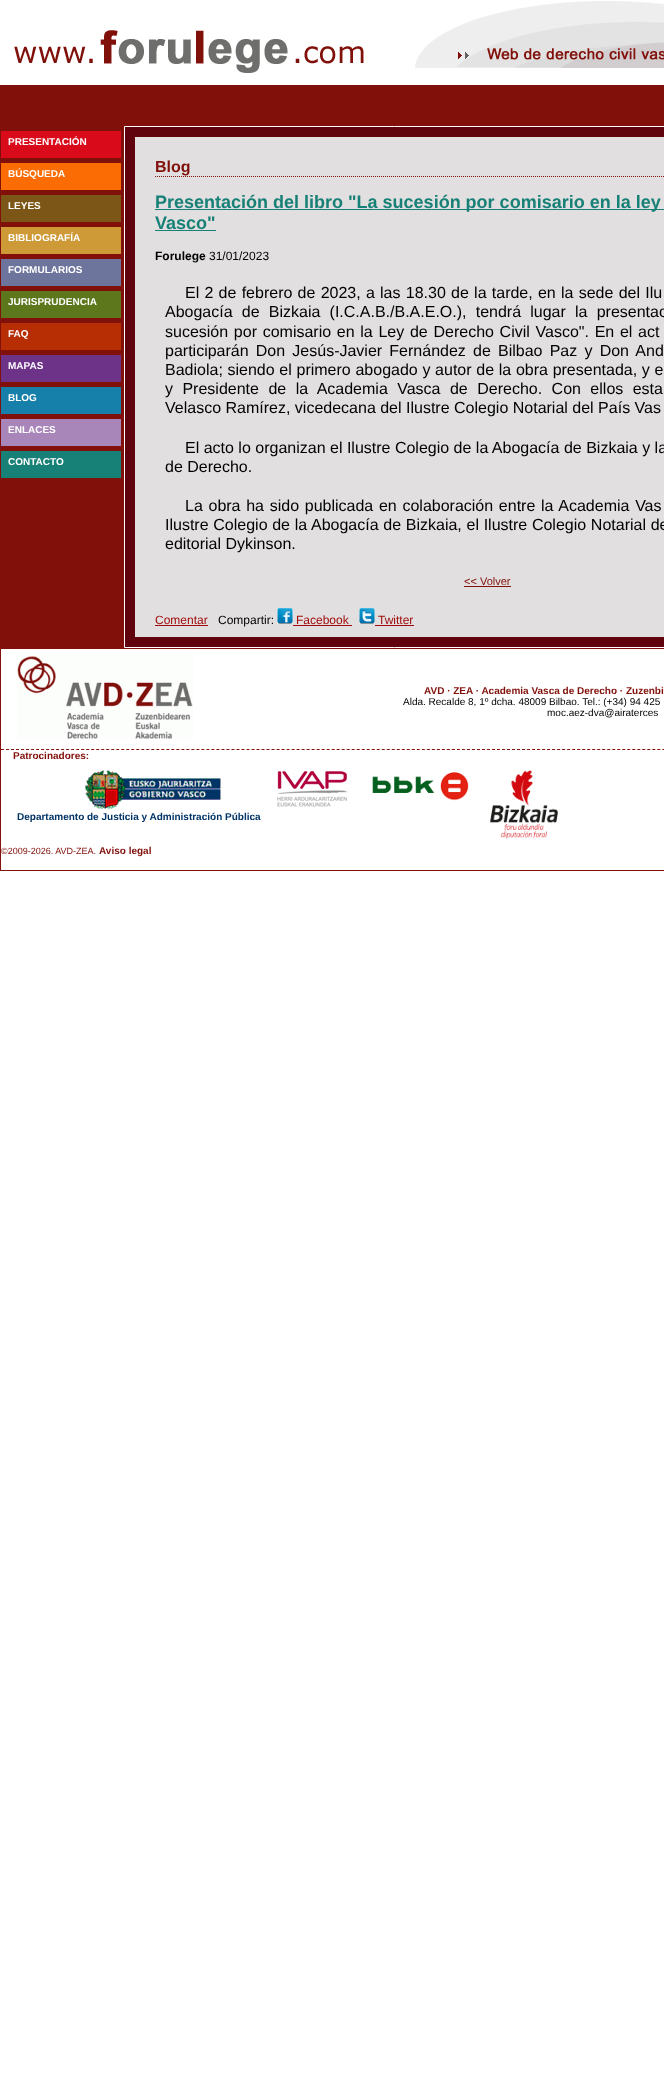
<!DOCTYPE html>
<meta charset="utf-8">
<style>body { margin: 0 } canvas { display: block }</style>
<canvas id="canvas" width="664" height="2096"></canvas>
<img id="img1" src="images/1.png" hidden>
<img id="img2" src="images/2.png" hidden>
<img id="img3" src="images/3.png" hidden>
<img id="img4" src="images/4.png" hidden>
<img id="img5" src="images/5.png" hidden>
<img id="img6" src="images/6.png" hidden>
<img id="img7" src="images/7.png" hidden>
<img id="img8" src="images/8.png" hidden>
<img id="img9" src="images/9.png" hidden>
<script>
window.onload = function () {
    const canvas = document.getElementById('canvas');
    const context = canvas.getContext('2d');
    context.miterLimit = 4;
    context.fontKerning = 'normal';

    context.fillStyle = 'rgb(255, 255, 255)';
    context.fillRect(0, 0, 664, 2096);
    context.drawImage(document.getElementById('img1'), 14, 30, 350, 43);
    context.drawImage(document.getElementById('img2'), 415, 1, 249, 67);
    context.fillStyle = 'rgb(129, 16, 10)';
    context.fillRect(0, 85, 664, 564);
    context.fillStyle = 'rgb(217, 11, 26)';
    context.fillRect(1, 131, 120, 27);
    context.fillStyle = 'rgb(251, 108, 4)';
    context.fillRect(1, 163, 120, 27);
    context.fillStyle = 'rgb(124, 86, 23)';
    context.fillRect(1, 195, 120, 27);
    context.fillStyle = 'rgb(206, 154, 55)';
    context.fillRect(1, 227, 120, 27);
    context.fillStyle = 'rgb(109, 117, 156)';
    context.fillRect(1, 259, 120, 27);
    context.fillStyle = 'rgb(93, 119, 29)';
    context.fillRect(1, 291, 120, 27);
    context.fillStyle = 'rgb(183, 46, 4)';
    context.fillRect(1, 323, 120, 27);
    context.fillStyle = 'rgb(108, 51, 137)';
    context.fillRect(1, 355, 120, 27);
    context.fillStyle = 'rgb(23, 128, 170)';
    context.fillRect(1, 387, 120, 27);
    context.fillStyle = 'rgb(168, 134, 185)';
    context.fillRect(1, 419, 120, 27);
    context.fillStyle = 'rgb(23, 128, 119)';
    context.fillRect(1, 451, 120, 27);
    context.fillStyle = 'rgb(96, 3, 14)';
    context.beginPath();
    context.rect(124.5, 126.5, 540, 521);
    context.fill();
    context.strokeStyle = 'rgb(255, 255, 255)';
    context.stroke();
    context.fillStyle = 'rgb(225, 223, 223)';
    context.fillRect(135, 137, 529, 500);
    context.beginPath();
    context.moveTo(155, 176.5);
    context.lineTo(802, 176.5);
    context.strokeStyle = 'rgb(129, 16, 10)';
    context.setLineDash([1, 1]);
    context.stroke();
    context.fillStyle = 'rgb(23, 128, 119)';
    context.fillRect(155, 209, 509, 1);
    context.fillRect(155, 230, 61, 1);
    context.fillStyle = 'rgb(129, 16, 10)';
    context.fillRect(464, 586, 47, 1);
    context.fillStyle = 'rgb(160, 12, 14)';
    context.fillRect(155, 625, 53, 1);
    context.drawImage(document.getElementById('img3'), 277, 608, 16, 16);
    context.fillRect(293, 625, 59, 1);
    context.drawImage(document.getElementById('img4'), 359, 608, 16, 16);
    context.fillRect(375, 625, 39, 1);
    context.fillStyle = 'rgb(132, 18, 12)';
    context.fillRect(0, 649, 1, 222);
    context.drawImage(document.getElementById('img5'), 17, 655, 176, 84);
    context.beginPath();
    context.moveTo(1, 749.5);
    context.lineTo(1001, 749.5);
    context.strokeStyle = 'rgb(132, 18, 12)';
    context.setLineDash([3, 2.01]);
    context.stroke();
    context.fillRect(1, 870, 663, 1);
    context.drawImage(document.getElementById('img6'), 277, 770, 71, 37);
    context.drawImage(document.getElementById('img7'), 372, 772, 97, 29);
    context.drawImage(document.getElementById('img8'), 490, 770, 68, 69);
    context.drawImage(document.getElementById('img9'), 85, 770, 136, 39);
    context.font = 'bold 10px Liberation Sans';
    context.fillStyle = 'rgb(255, 255, 255)';
    context.fillText('PRESENTACIÓN', 8, 145);
    context.fillText('BÚSQUEDA', 8, 177);
    context.fillText('LEYES', 8, 209);
    context.fillText('BIBLIOGRAFÍA', 8, 241);
    context.fillText('FORMULARIOS', 8, 273);
    context.fillText('JURISPRUDENCIA', 8, 305);
    context.fillText('FAQ', 8, 337);
    context.fillText('MAPAS', 8, 369);
    context.fillText('BLOG', 8, 401);
    context.fillText('ENLACES', 8, 433);
    context.fillText('CONTACTO', 8, 465);
    context.font = 'bold 16px Liberation Sans';
    context.fillStyle = 'rgb(129, 16, 10)';
    context.fillText('Blog', 155, 172);
    context.font = 'bold 18px Liberation Sans';
    context.fillStyle = 'rgb(23, 128, 119)';
    context.fillText('Presentación del libro "La sucesión por comisario en la ley', 155, 208);
    context.fillText('Vasco"', 155, 229);
    context.font = 'bold 12px Liberation Sans';
    context.fillStyle = 'rgb(0, 0, 0)';
    context.fillText('Forulege', 155, 260);
    context.font = '12px Liberation Sans';
    context.fillText('31/01/2023', 209, 260);
    context.wordSpacing = '0.8px';
    context.font = '16px Liberation Sans';
    context.fillText('El 2 de febrero de 2023, a las 18.30 de la tarde, en la sede del Ilu', 185, 298);
    context.wordSpacing = '4.75px';
    context.fillText('Abogacía de Bizkaia (I.C.A.B./B.A.E.O.), tendrá lugar la presentac', 165, 317);
    context.wordSpacing = '1.25px';
    context.fillText('sucesión por comisario en la Ley de Derecho Civil Vasco". En el act', 165, 337);
    context.wordSpacing = '2.75px';
    context.fillText('participarán Don Jesús-Javier Fernández de Bilbao Paz y Don And', 165, 356);
    context.wordSpacing = '0.25px';
    context.fillText('Badiola; siendo el primero abogado y autor de la obra presentada, y e', 165, 375);
    context.wordSpacing = '5px';
    context.fillText('y Presidente de la Academia Vasca de Derecho. Con ellos estar', 165, 394);
    context.wordSpacing = '0px';
    context.fillText('Velasco Ramírez, vicedecana del Ilustre Colegio Notarial del País Vas', 165, 413);
    context.fillText('El acto lo organizan el Ilustre Colegio de la Abogacía de Bizkaia y la', 185, 453);
    context.fillText('de Derecho.', 165, 472);
    context.wordSpacing = '1.25px';
    context.fillText('La obra ha sido publicada en colaboración entre la Academia Vas', 185, 511);
    context.wordSpacing = '0.25px';
    context.fillText('Ilustre Colegio de la Abogacía de Bizkaia, el Ilustre Colegio Notarial de', 165, 530);
    context.wordSpacing = '0px';
    context.fillText('editorial Dykinson.', 165, 549);
    context.font = '11px Liberation Sans';
    context.fillStyle = 'rgb(129, 16, 10)';
    context.fillText('<< Volver', 464, 585);
    context.font = '12px Liberation Sans';
    context.fillStyle = 'rgb(160, 12, 14)';
    context.fillText('Comentar', 155, 624);
    context.fillStyle = 'rgb(0, 0, 0)';
    context.fillText('Compartir:', 218, 624);
    context.fillStyle = 'rgb(160, 12, 14)';
    context.fillText('Facebook', 296, 624);
    context.fillText('Twitter', 378, 624);
    context.font = 'bold 10px Liberation Sans';
    context.fillStyle = 'rgb(129, 16, 10)';
    context.fillText('AVD · ZEA · Academia Vasca de Derecho · Zuzenbi', 424, 694);
    context.font = '10px Liberation Sans';
    context.fillStyle = 'rgb(0, 0, 0)';
    context.fillText('Alda. Recalde 8, 1º dcha. 48009 Bilbao. Tel.: (+34) 94 425', 403, 705);
    context.fillText('moc.aez-dva@airaterces', 547, 716);
    context.font = 'bold 10px Liberation Sans';
    context.fillStyle = 'rgb(129, 16, 10)';
    context.fillText('Patrocinadores:', 13, 759);
    context.fillStyle = 'rgb(0, 51, 102)';
    context.fillText('Departamento de Justicia y Administración Pública', 17, 820);
    context.font = '9px Liberation Sans';
    context.fillStyle = 'rgb(129, 16, 10)';
    context.fillText('©2009-2026. AVD-ZEA.', 1, 854);
    context.font = 'bold 10px Liberation Sans';
    context.fillText('Aviso legal', 99, 854);
};
</script>
